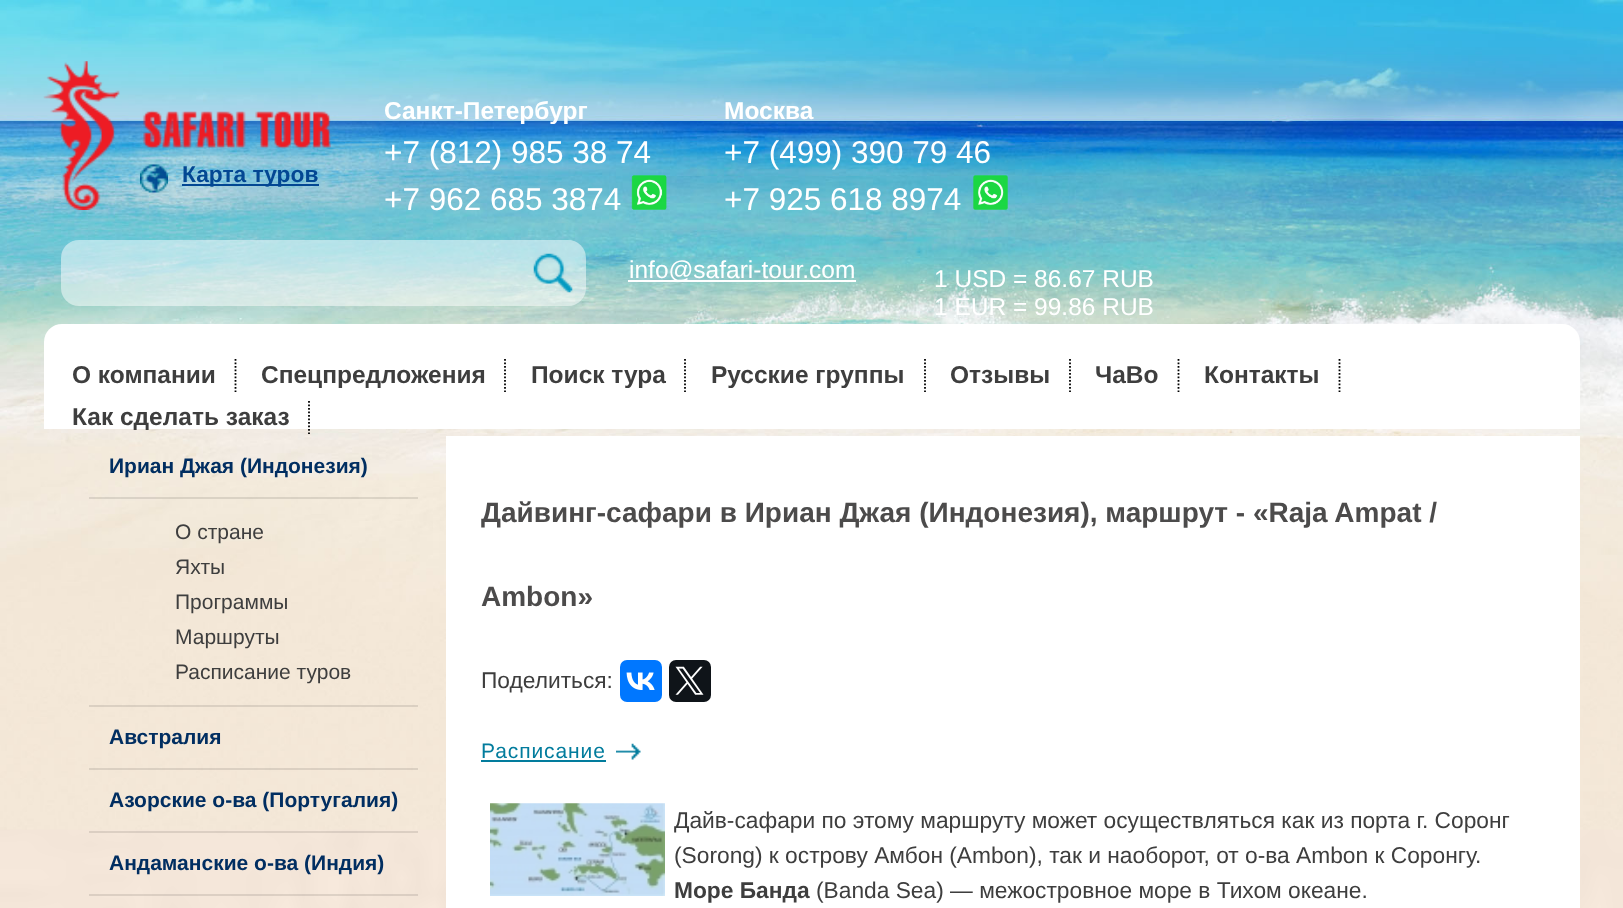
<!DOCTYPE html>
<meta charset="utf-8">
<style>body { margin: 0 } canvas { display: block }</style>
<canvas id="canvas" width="1623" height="908"></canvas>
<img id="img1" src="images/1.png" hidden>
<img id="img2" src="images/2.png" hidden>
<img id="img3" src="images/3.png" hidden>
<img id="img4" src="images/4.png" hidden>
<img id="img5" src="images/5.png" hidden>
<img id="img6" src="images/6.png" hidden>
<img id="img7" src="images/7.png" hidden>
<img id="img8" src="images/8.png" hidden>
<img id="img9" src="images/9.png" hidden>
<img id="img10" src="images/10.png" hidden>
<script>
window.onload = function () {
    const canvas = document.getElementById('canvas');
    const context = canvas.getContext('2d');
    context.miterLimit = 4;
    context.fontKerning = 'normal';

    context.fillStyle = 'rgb(255, 255, 255)';
    context.fillRect(0, 0, 1623, 908);
    context.drawImage(document.getElementById('img1'), 0, 0, 1623, 908);
    context.drawImage(document.getElementById('img2'), 43, 61, 288, 149);
    context.drawImage(document.getElementById('img3'), 631, 175, 36, 35);
    context.drawImage(document.getElementById('img4'), 973, 175, 35, 35);
    context.drawImage(document.getElementById('img5'), 140, 164, 28, 29);
    context.fillStyle = 'rgb(3, 71, 147)';
    context.fillRect(182, 184, 137, 2);
    context.fillStyle = 'rgba(255, 255, 255, 0.5)';
    context.beginPath();
    context.roundRect(61, 240, 525, 66, 18);
    context.fill();
    context.drawImage(document.getElementById('img6'), 533, 253, 40, 40);
    context.fillStyle = 'rgb(255, 255, 255)';
    context.fillRect(628, 280, 228, 2);
    context.beginPath();
    context.roundRect(44, 324, 1536, 105, [18, 18, 0, 0]);
    context.fill();
    context.beginPath();
    context.moveTo(235.5, 359);
    context.lineTo(235.5, 392);
    context.strokeStyle = 'rgb(0, 0, 0)';
    context.lineWidth = 1.8;
    context.setLineDash([1.75, 1.75]);
    context.stroke();
    context.beginPath();
    context.moveTo(505, 359);
    context.lineTo(505, 392);
    context.stroke();
    context.beginPath();
    context.moveTo(685, 359);
    context.lineTo(685, 392);
    context.stroke();
    context.beginPath();
    context.moveTo(925, 359);
    context.lineTo(925, 392);
    context.stroke();
    context.beginPath();
    context.moveTo(1070, 359);
    context.lineTo(1070, 392);
    context.stroke();
    context.beginPath();
    context.moveTo(1178.5, 359);
    context.lineTo(1178.5, 392);
    context.stroke();
    context.beginPath();
    context.moveTo(1339.5, 359);
    context.lineTo(1339.5, 392);
    context.stroke();
    context.beginPath();
    context.moveTo(309, 401);
    context.lineTo(309, 434);
    context.stroke();
    context.fillStyle = 'rgba(0, 0, 0, 0.1)';
    context.fillRect(89, 497, 329, 2);
    context.fillRect(89, 705, 329, 2);
    context.fillRect(89, 768, 329, 2);
    context.fillRect(89, 831, 329, 2);
    context.fillRect(89, 894, 329, 2);
    context.fillStyle = 'rgb(255, 255, 255)';
    context.fillRect(446, 436, 1134, 472);
    context.fillStyle = 'rgb(0, 119, 255)';
    context.beginPath();
    context.roundRect(620, 660, 42, 42, 7);
    context.fill();
    context.drawImage(document.getElementById('img7'), 626, 672, 29, 18);
    context.fillStyle = 'rgb(15, 20, 25)';
    context.beginPath();
    context.roundRect(669, 660, 42, 42, 7);
    context.fill();
    context.drawImage(document.getElementById('img8'), 675, 666, 29, 29);
    context.fillStyle = 'rgb(2, 124, 157)';
    context.fillRect(481, 760, 125, 2);
    context.drawImage(document.getElementById('img9'), 616, 743, 25, 17);
    context.drawImage(document.getElementById('img10'), 490, 803, 175, 93);
    context.font = 'bold 24.5px Liberation Sans';
    context.fillStyle = 'rgb(255, 255, 255)';
    context.fillText('Санкт-Петербург', 384, 119);
    context.font = '31.5px Liberation Sans';
    context.fillText('+7 (812) 985 38 74', 384, 163);
    context.fillText('+7 962 685 3874', 384, 210);
    context.font = 'bold 24.5px Liberation Sans';
    context.fillText('Москва', 724, 119);
    context.font = '31.5px Liberation Sans';
    context.fillText('+7 (499) 390 79 46', 724, 163);
    context.fillText('+7 925 618 8974', 724, 210);
    context.font = 'bold 22.75px Liberation Sans';
    context.fillStyle = 'rgb(3, 71, 147)';
    context.fillText('Карта туров', 182, 182);
    context.font = '24.5px Liberation Sans';
    context.fillStyle = 'rgb(255, 255, 255)';
    context.fillText('info@safari-tour.com', 629, 278);
    context.fillText('1 USD = 86.67 RUB', 934, 287);
    context.fillText('1 EUR = 99.86 RUB', 934, 315);
    context.font = 'bold 24.5px Liberation Sans';
    context.fillStyle = 'rgb(62, 62, 62)';
    context.fillText('О компании', 72, 383);
    context.fillText('Спецпредложения', 261, 383);
    context.fillText('Поиск тура', 531, 383);
    context.fillText('Русские группы', 711, 383);
    context.fillText('Отзывы', 950, 383);
    context.fillText('ЧаВо', 1095, 383);
    context.fillText('Контакты', 1204, 383);
    context.fillText('Как сделать заказ', 72, 425);
    context.font = 'bold 21px Liberation Sans';
    context.fillStyle = 'rgb(1, 46, 97)';
    context.fillText('Ириан Джая (Индонезия)', 109, 473);
    context.font = '21px Liberation Sans';
    context.fillStyle = 'rgb(62, 62, 62)';
    context.fillText('О стране', 175, 539);
    context.fillText('Яхты', 175, 574);
    context.fillText('Программы', 175, 609);
    context.fillText('Маршруты', 175, 644);
    context.fillText('Расписание туров', 175, 679);
    context.font = 'bold 21px Liberation Sans';
    context.fillStyle = 'rgb(1, 46, 97)';
    context.fillText('Австралия', 109, 744);
    context.fillText('Азорские о-ва (Португалия)', 109, 807);
    context.fillText('Андаманские о-ва (Индия)', 109, 870);
    context.font = 'bold 28px Liberation Sans';
    context.fillStyle = 'rgb(76, 75, 75)';
    context.fillText('Дайвинг-сафари в Ириан Джая (Индонезия), маршрут - «Raja Ampat /', 481, 522);
    context.fillText('Ambon»', 481, 606);
    context.font = '22.75px Liberation Sans';
    context.fillStyle = 'rgb(62, 62, 62)';
    context.fillText('Поделиться:', 481, 688);
    context.letterSpacing = '0.9px';
    context.font = '21px Liberation Sans';
    context.fillStyle = 'rgb(2, 124, 157)';
    context.fillText('Расписание', 481, 758);
    context.letterSpacing = '0px';
    context.font = '22.75px Liberation Sans';
    context.fillStyle = 'rgb(62, 62, 62)';
    context.fillText('Дайв-сафари по этому маршруту может осуществляться как из порта г. Соронг', 674, 828);
    context.fillText('(Sorong) к острову Амбон (Ambon), так и наоборот, от о-ва Ambon к Соронгу.', 674, 863);
    context.font = 'bold 22.75px Liberation Sans';
    context.fillText('Море Банда', 674, 898);
    context.font = '22.75px Liberation Sans';
    context.fillText('(Banda Sea) — межостровное море в Тихом океане.', 816, 898);
};
</script>
